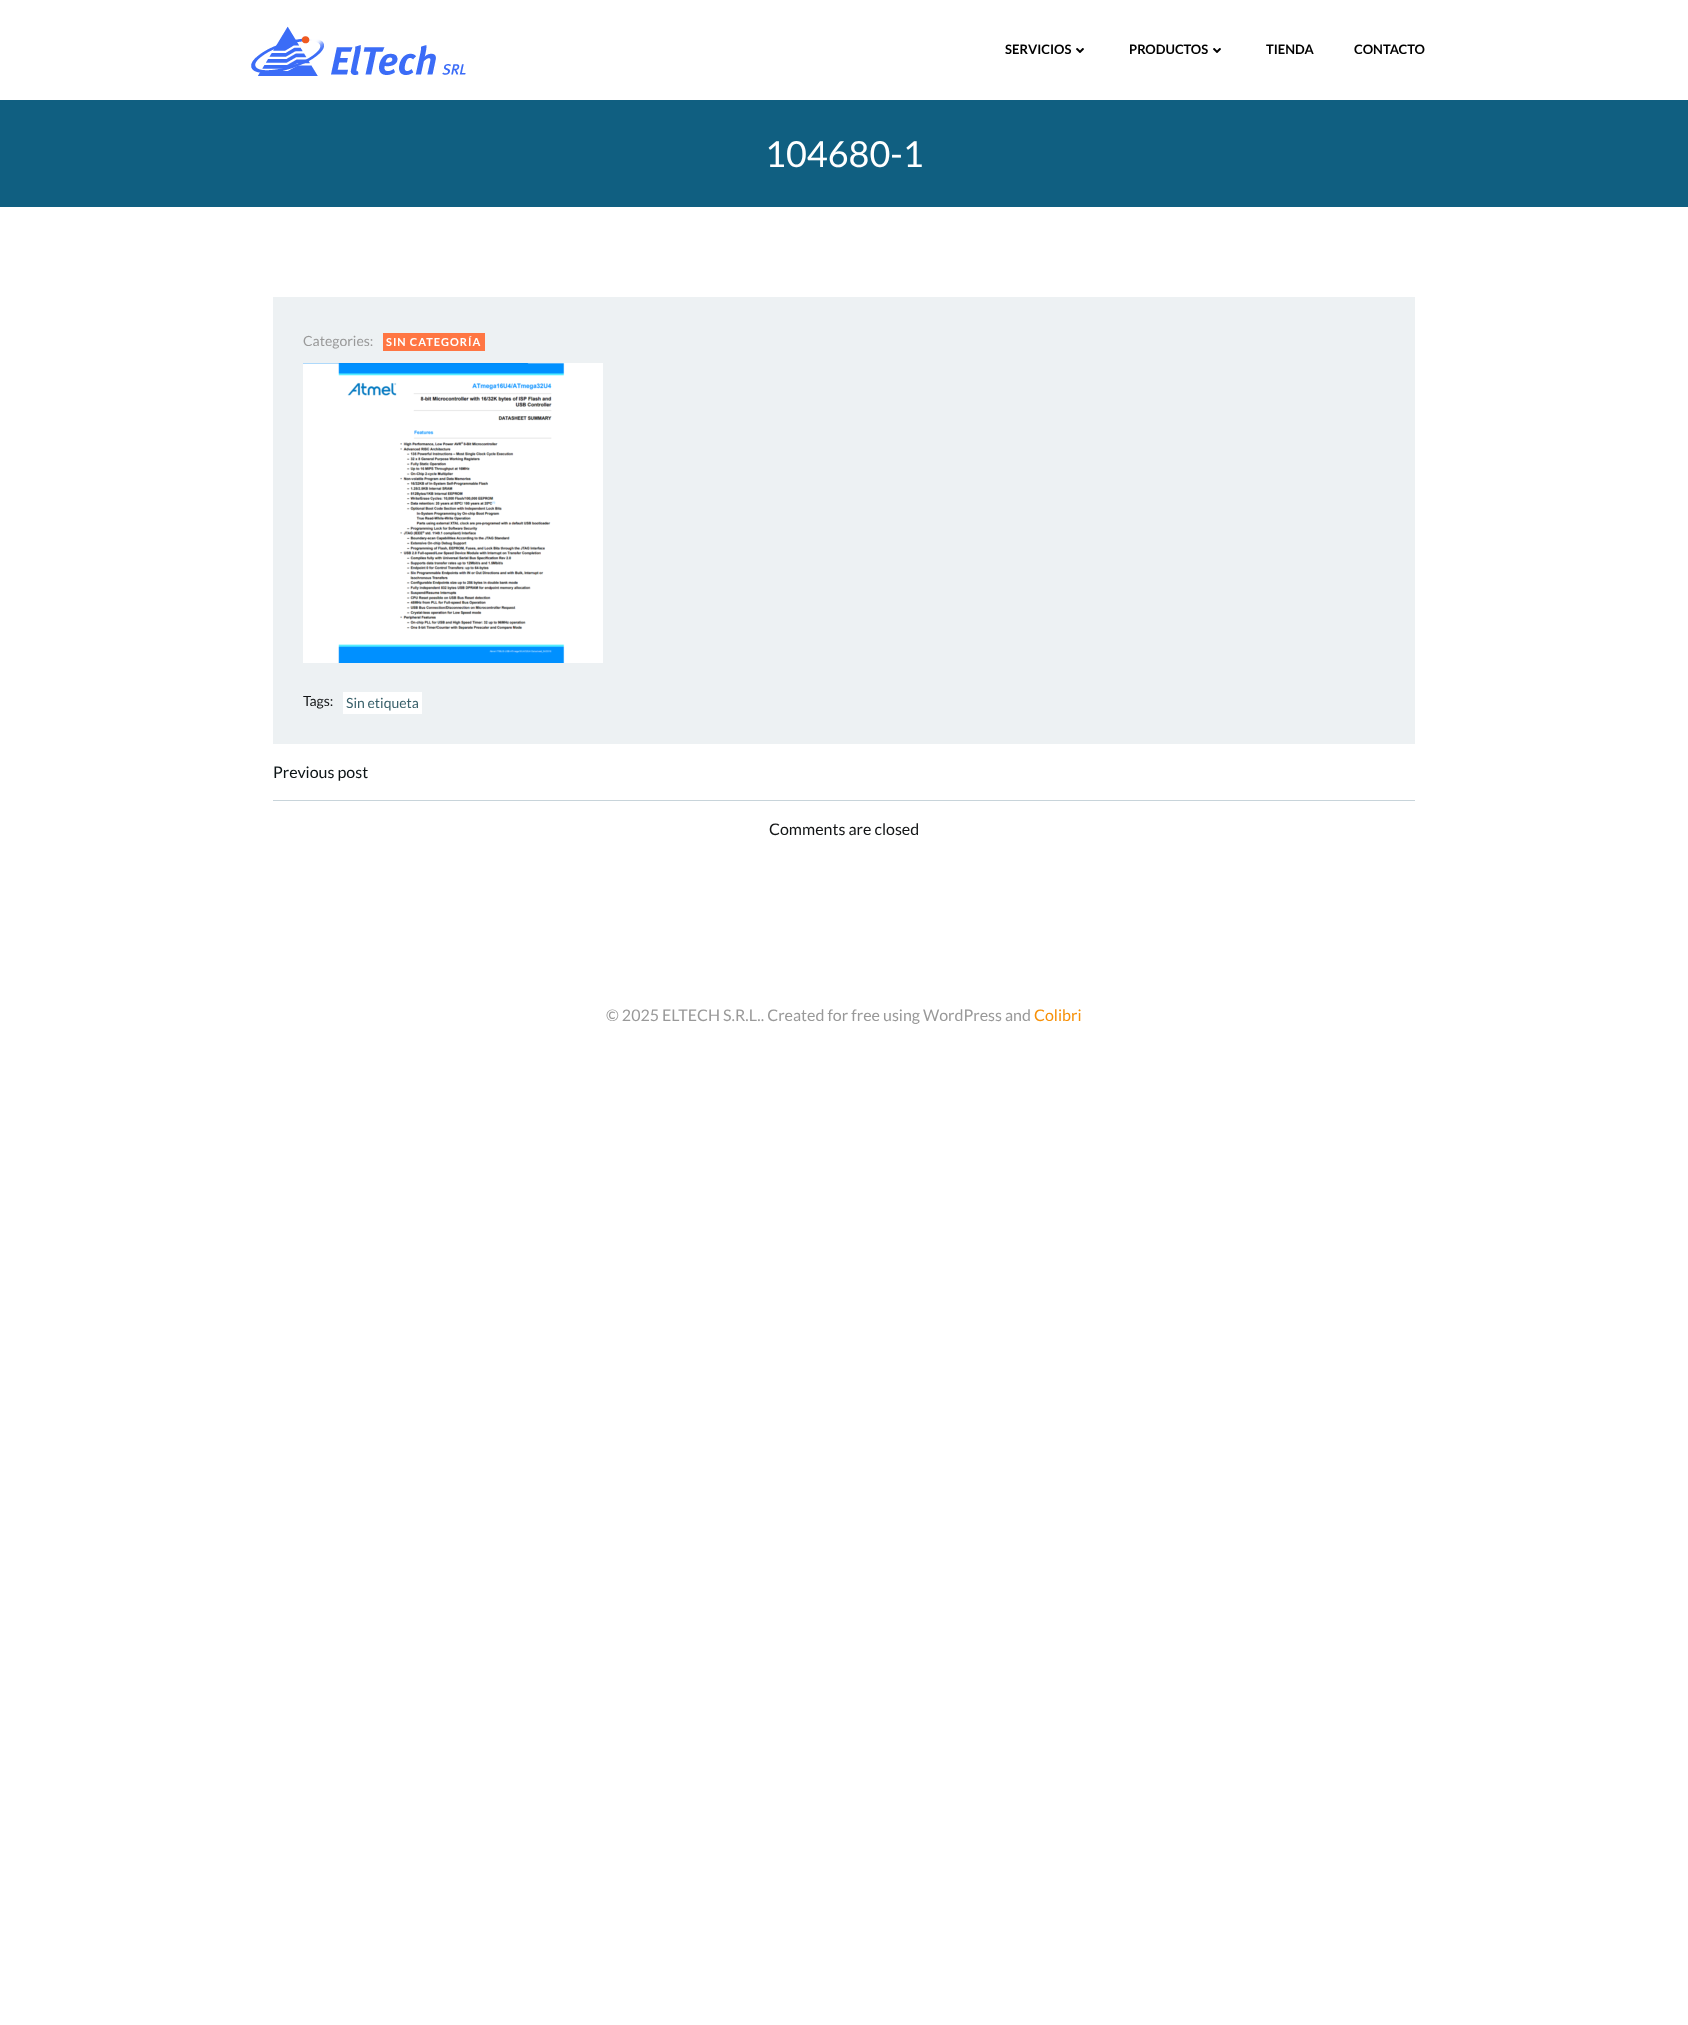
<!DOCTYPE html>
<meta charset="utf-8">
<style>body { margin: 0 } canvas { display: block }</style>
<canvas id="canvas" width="1688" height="2025"></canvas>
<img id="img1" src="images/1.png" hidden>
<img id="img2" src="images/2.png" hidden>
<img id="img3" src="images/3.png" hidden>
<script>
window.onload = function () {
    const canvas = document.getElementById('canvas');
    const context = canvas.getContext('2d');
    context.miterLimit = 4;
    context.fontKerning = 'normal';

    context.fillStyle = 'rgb(255, 255, 255)';
    context.fillRect(0, 0, 1688, 2025);
    context.drawImage(document.getElementById('img1'), 251, 26, 215, 50);
    context.drawImage(document.getElementById('img2'), 1076, 48, 8, 5);
    context.drawImage(document.getElementById('img2'), 1213, 48, 8, 5);
    context.fillStyle = 'rgb(16, 95, 129)';
    context.fillRect(0, 100, 1688, 107);
    context.fillStyle = 'rgb(237, 241, 243)';
    context.fillRect(273, 297, 1142, 447);
    context.fillStyle = 'rgb(255, 118, 67)';
    context.fillRect(383, 333, 102, 18);
    context.drawImage(document.getElementById('img3'), 303, 363, 300, 300);
    context.fillStyle = 'rgb(255, 255, 255)';
    context.fillRect(343, 692, 79, 22);
    context.fillStyle = 'rgb(200, 212, 218)';
    context.fillRect(273, 800, 1142, 1);
    context.font = 'bold 13px Lato';
    context.fillStyle = 'rgb(0, 0, 0)';
    context.fillText('SERVICIOS', 1005, 54);
    context.fillText('PRODUCTOS', 1129, 54);
    context.fillText('TIENDA', 1266, 54);
    context.fillText('CONTACTO', 1354, 54);
    context.font = '36px Lato';
    context.fillStyle = 'rgb(255, 255, 255)';
    context.fillText('104680-1', 765, 167);
    context.font = '14px Lato';
    context.fillStyle = 'rgb(153, 153, 153)';
    context.fillText('Categories:', 303, 346);
    context.letterSpacing = '1px';
    context.font = 'bold 11px Lato';
    context.fillStyle = 'rgb(255, 255, 255)';
    context.fillText('SIN CATEGORÍA', 386, 346);
    context.letterSpacing = '0px';
    context.font = '14px Lato';
    context.fillStyle = 'rgb(19, 21, 22)';
    context.fillText('Tags:', 303, 706);
    context.fillStyle = 'rgb(58, 97, 107)';
    context.fillText('Sin etiqueta', 346, 708);
    context.font = '16px Lato';
    context.fillStyle = 'rgb(12, 20, 22)';
    context.fillText('Previous post', 273, 778);
    context.fillStyle = 'rgb(19, 21, 22)';
    context.fillText('Comments are closed', 769, 835);
    context.fillStyle = 'rgb(153, 153, 153)';
    context.fillText('© 2025 ELTECH S.R.L.. Created for free using WordPress and', 606, 1021);
    context.fillStyle = 'rgb(247, 144, 7)';
    context.fillText('Colibri', 1034, 1021);
};
</script>
